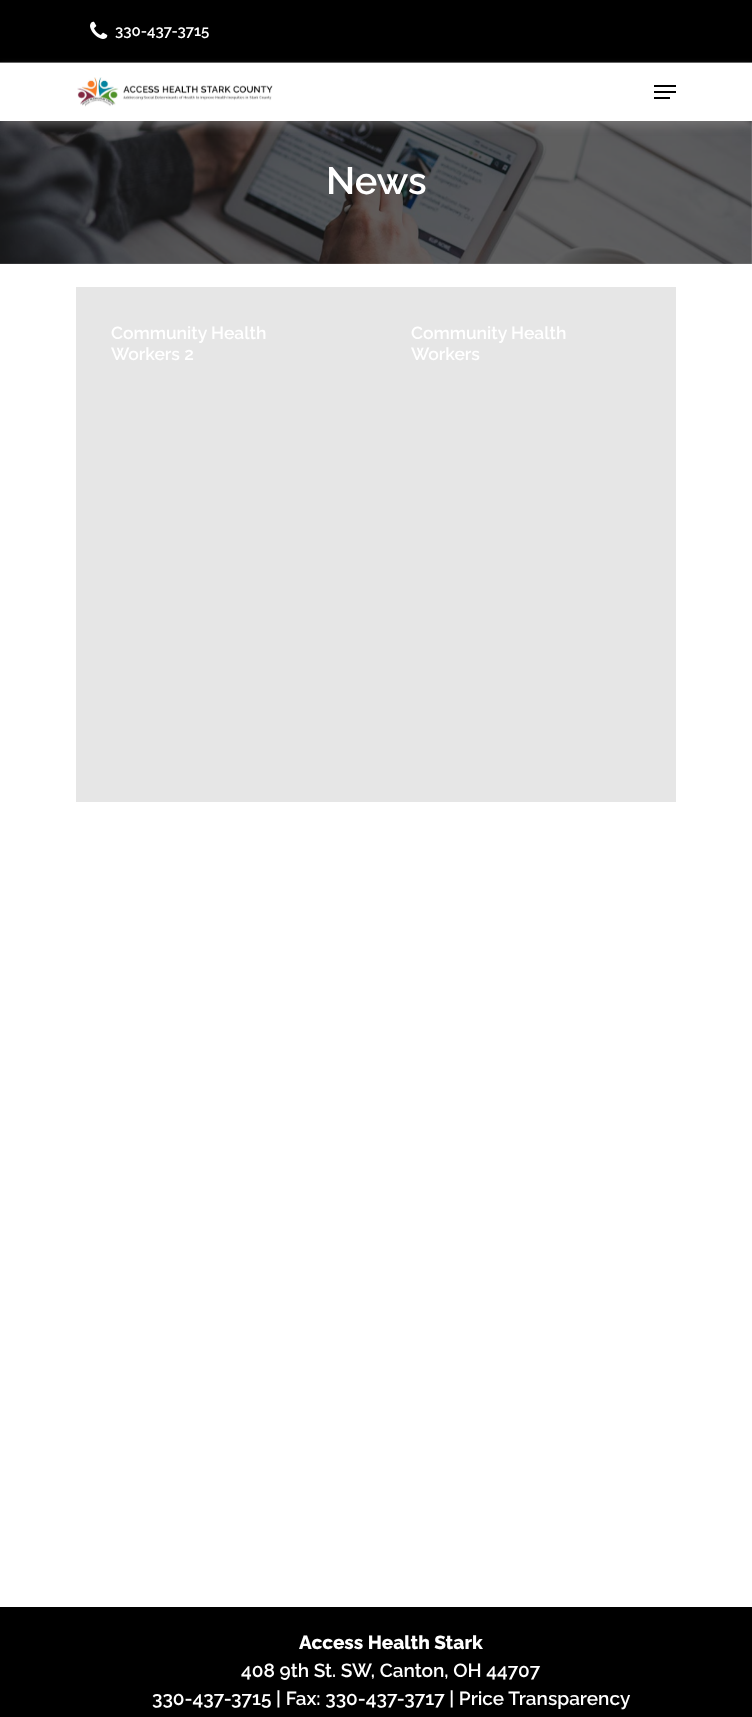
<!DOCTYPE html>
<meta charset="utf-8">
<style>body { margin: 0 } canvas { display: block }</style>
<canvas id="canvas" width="752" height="1717"></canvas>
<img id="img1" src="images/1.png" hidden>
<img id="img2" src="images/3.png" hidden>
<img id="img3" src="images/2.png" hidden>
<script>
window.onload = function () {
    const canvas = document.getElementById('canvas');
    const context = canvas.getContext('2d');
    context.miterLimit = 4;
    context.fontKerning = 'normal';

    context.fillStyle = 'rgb(255, 255, 255)';
    context.fillRect(0, 0, 752, 1717);
    context.fillStyle = 'rgb(0, 0, 0)';
    context.fillRect(0, 0, 752, 62);
    context.drawImage(document.getElementById('img1'), 90, 21, 18, 18);
    context.drawImage(document.getElementById('img2'), 0, 121, 752, 143);
    context.save();
    context.beginPath();
    context.moveTo(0, 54);
    context.lineTo(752, 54);
    context.lineTo(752, 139);
    context.lineTo(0, 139);
    context.closePath();
    context.moveTo(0, 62);
    context.lineTo(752, 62);
    context.lineTo(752, 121);
    context.lineTo(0, 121);
    context.closePath();
    context.clip('evenodd');
    context.fillStyle = 'rgba(139, 136, 136, 0.5)';
    context.filter = 'blur(4px)';
    context.beginPath();
    context.rect(1, 67, 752, 59);
    context.fill();
    context.filter = 'none';
    context.restore();
    context.fillStyle = 'rgb(103, 103, 103)';
    context.fillRect(0, 62, 752, 1);
    context.drawImage(document.getElementById('img3'), 77, 77, 196, 30);
    context.fillStyle = 'rgb(0, 0, 0)';
    context.fillRect(654, 85, 22, 2);
    context.fillRect(654, 97, 16, 2);
    context.fillRect(654, 91, 22, 2);
    context.fillStyle = 'rgb(230, 230, 230)';
    context.fillRect(76, 287, 600, 515);
    context.fillStyle = 'rgb(0, 0, 0)';
    context.fillRect(0, 1607, 752, 110);
    context.font = '600 15px Raleway';
    context.fillStyle = 'rgb(255, 255, 255)';
    context.fillText('330-437-3715', 115, 36);
    context.font = '600 38px Raleway';
    context.fillText('News', 326, 194);
    context.font = '600 17.5px Raleway';
    context.fillText('Community Health', 111, 339);
    context.fillText('Workers 2', 111, 360);
    context.fillText('Community Health', 411, 339);
    context.fillText('Workers', 411, 360);
    context.font = '800 19px Raleway';
    context.fillText('Access Health Stark', 299, 1649);
    context.font = '600 19px Raleway';
    context.fillText('408 9th St. SW, Canton, OH 44707', 241, 1677);
    context.fillText('330-437-3715 | Fax: 330-437-3717 | Price Transparency', 152, 1705);
};
</script>
